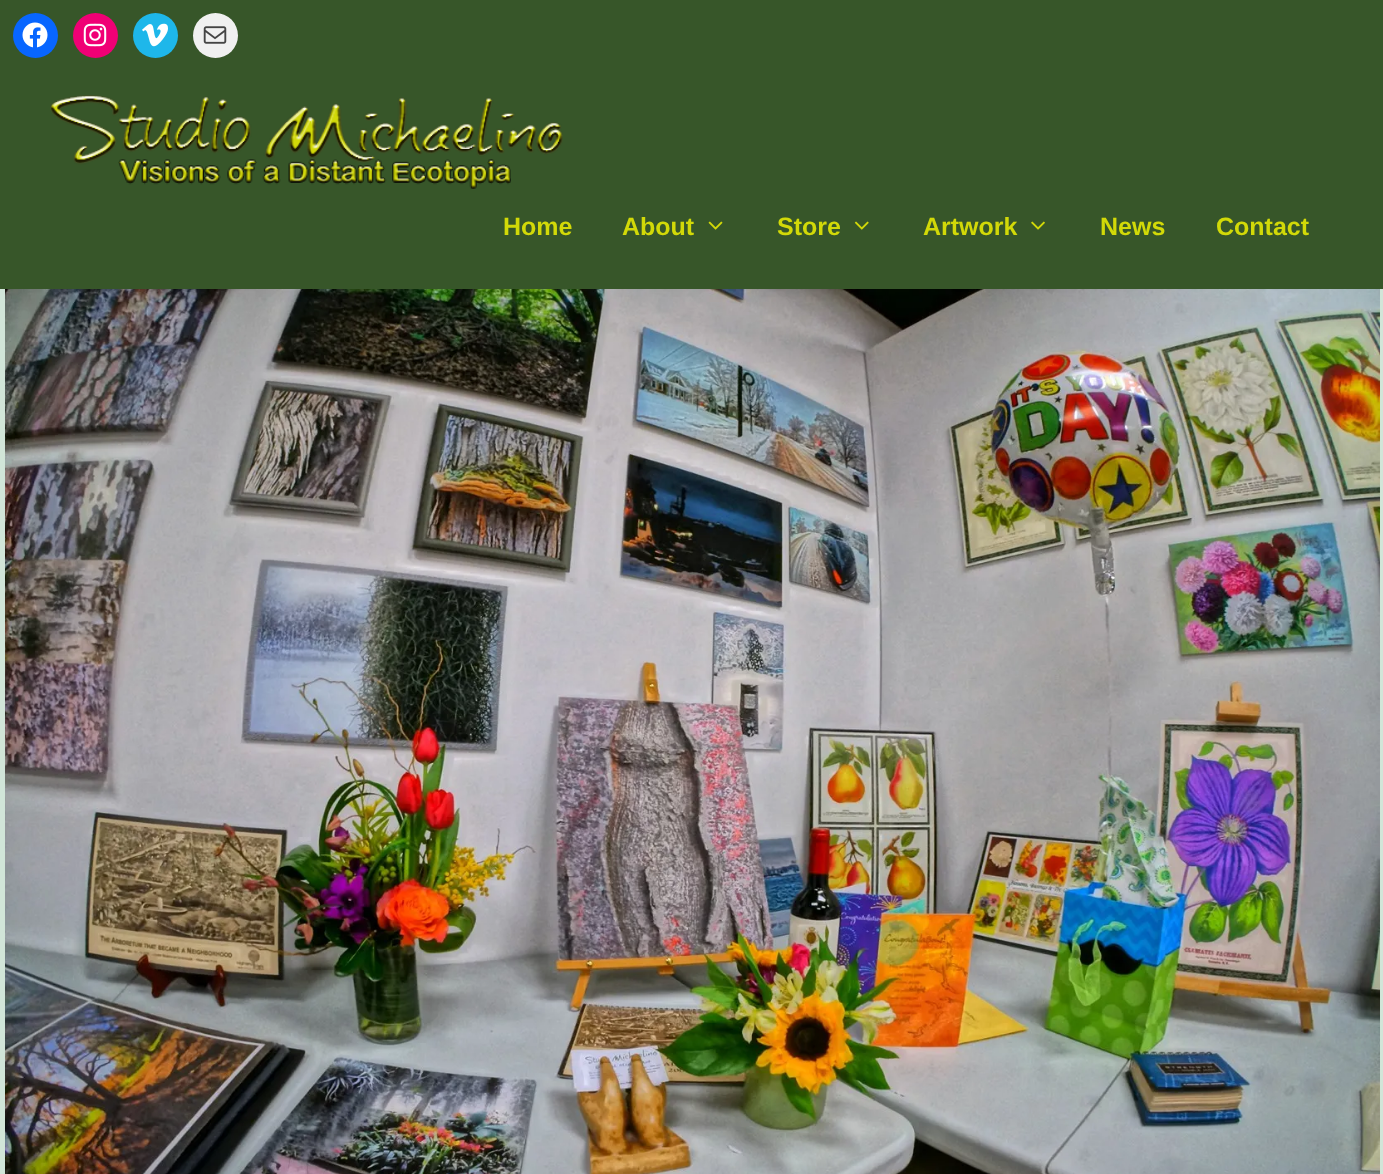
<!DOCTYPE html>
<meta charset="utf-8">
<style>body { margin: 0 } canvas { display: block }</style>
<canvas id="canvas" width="1383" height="1174"></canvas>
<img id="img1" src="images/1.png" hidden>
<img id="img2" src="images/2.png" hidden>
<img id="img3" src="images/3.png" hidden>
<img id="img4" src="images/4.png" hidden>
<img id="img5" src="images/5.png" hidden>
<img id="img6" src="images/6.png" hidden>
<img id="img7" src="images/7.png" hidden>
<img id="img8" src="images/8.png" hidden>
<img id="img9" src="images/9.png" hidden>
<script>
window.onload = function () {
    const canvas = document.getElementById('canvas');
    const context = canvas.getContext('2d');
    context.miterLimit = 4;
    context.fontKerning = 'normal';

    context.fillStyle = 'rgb(209, 229, 216)';
    context.fillRect(0, 0, 1383, 1174);
    context.fillStyle = 'rgb(55, 86, 41)';
    context.fillRect(0, 0, 1383, 289);
    context.fillStyle = 'rgb(8, 102, 255)';
    context.beginPath();
    context.arc(35.5, 35.5, 22.5, 0, 2 * Math.PI);
    context.fill();
    context.drawImage(document.getElementById('img1'), 22, 22, 26, 26);
    context.fillStyle = 'rgb(240, 0, 117)';
    context.beginPath();
    context.arc(95.5, 35.5, 22.5, 0, 2 * Math.PI);
    context.fill();
    context.drawImage(document.getElementById('img2'), 83, 23, 24, 24);
    context.fillStyle = 'rgb(30, 183, 234)';
    context.beginPath();
    context.arc(155.5, 35.5, 22.5, 0, 2 * Math.PI);
    context.fill();
    context.drawImage(document.getElementById('img3'), 142, 23, 26, 24);
    context.fillStyle = 'rgb(240, 240, 240)';
    context.beginPath();
    context.arc(215.5, 35.5, 22.5, 0, 2 * Math.PI);
    context.fill();
    context.drawImage(document.getElementById('img4'), 203, 26, 24, 18);
    context.drawImage(document.getElementById('img5'), 50, 95, 513, 94);
    context.drawImage(document.getElementById('img6'), 708, 221, 15, 9);
    context.drawImage(document.getElementById('img7'), 854, 221, 15, 9);
    context.drawImage(document.getElementById('img8'), 1031, 221, 14, 9);
    context.drawImage(document.getElementById('img9'), 5, 289, 1375, 885);
    context.font = 'bold 25px Liberation Sans';
    context.fillStyle = 'rgb(210, 217, 8)';
    context.fillText('Home', 503, 235);
    context.fillText('About', 622, 235);
    context.fillText('Store', 777, 235);
    context.fillText('Artwork', 923, 235);
    context.fillText('News', 1100, 235);
    context.fillText('Contact', 1216, 235);
};
</script>
